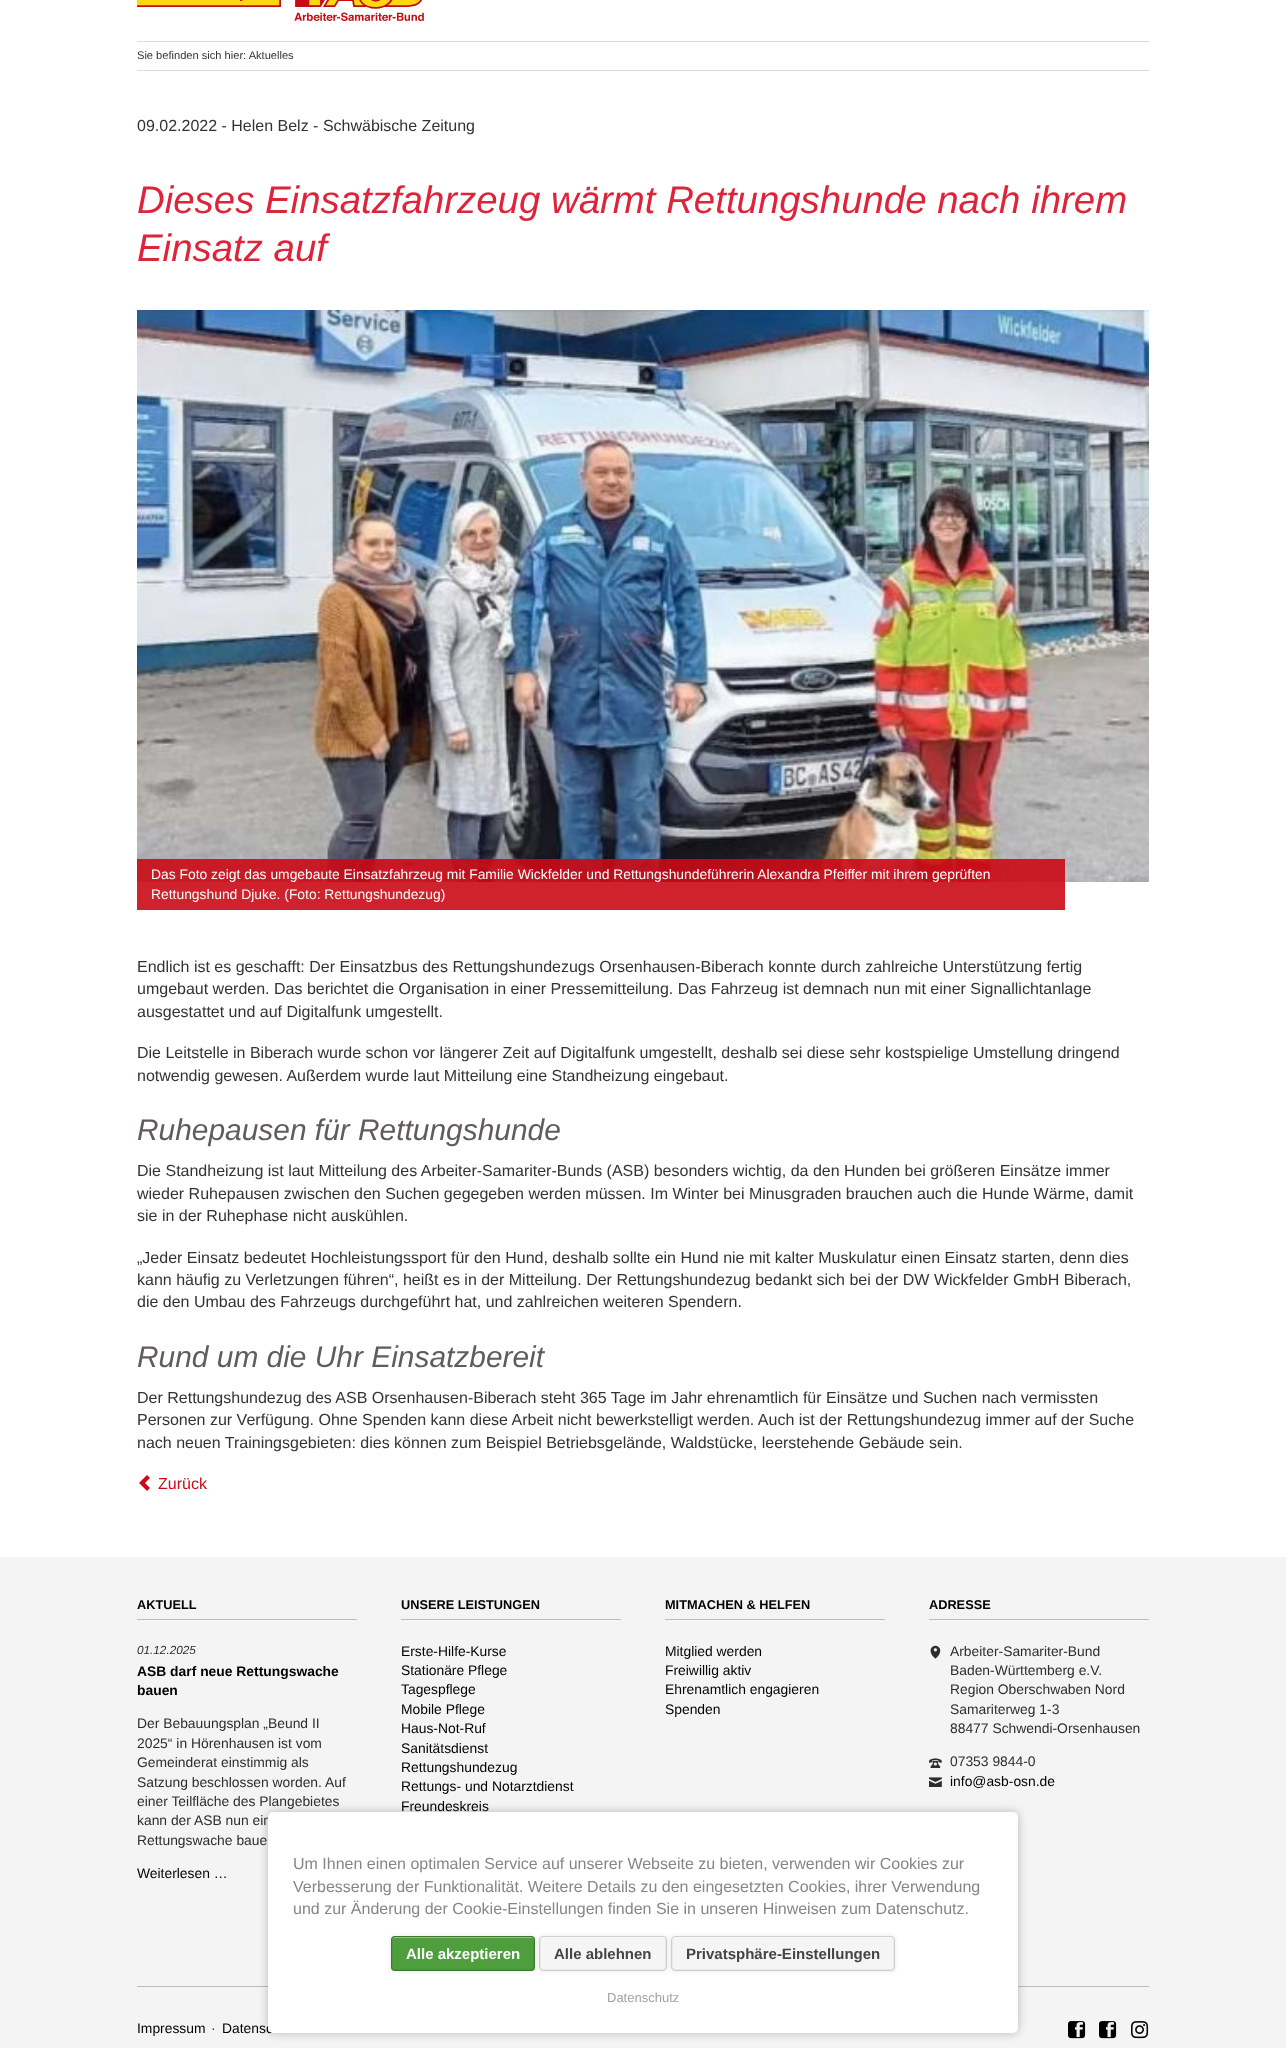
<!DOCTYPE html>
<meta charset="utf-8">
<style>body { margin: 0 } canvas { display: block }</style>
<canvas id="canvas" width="1286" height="2048"></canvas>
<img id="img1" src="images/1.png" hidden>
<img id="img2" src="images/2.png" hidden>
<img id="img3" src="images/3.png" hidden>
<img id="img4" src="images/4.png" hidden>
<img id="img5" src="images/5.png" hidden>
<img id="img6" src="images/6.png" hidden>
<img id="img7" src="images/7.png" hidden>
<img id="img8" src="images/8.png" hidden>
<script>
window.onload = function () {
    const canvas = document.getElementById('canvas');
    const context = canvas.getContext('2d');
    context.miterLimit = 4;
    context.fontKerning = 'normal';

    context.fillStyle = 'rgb(255, 255, 255)';
    context.fillRect(0, 0, 1286, 2048);
    context.fillStyle = 'rgb(220, 220, 220)';
    context.fillRect(137, 41, 1012, 1);
    context.drawImage(document.getElementById('img1'), 137, 0, 287, 21);
    context.fillRect(137, 70, 1012, 1);
    context.drawImage(document.getElementById('img2'), 137, 310, 1012, 572);
    context.fillStyle = 'rgba(202, 10, 22, 0.9)';
    context.fillRect(137, 859, 928, 51);
    context.drawImage(document.getElementById('img3'), 139, 1475, 11, 16);
    context.fillStyle = 'rgb(244, 244, 244)';
    context.fillRect(0, 1557, 1286, 491);
    context.fillStyle = 'rgb(188, 188, 188)';
    context.fillRect(137, 1619, 220, 1);
    context.fillRect(401, 1619, 220, 1);
    context.fillRect(665, 1619, 220, 1);
    context.fillRect(929, 1619, 220, 1);
    context.drawImage(document.getElementById('img4'), 930, 1645, 11, 14);
    context.drawImage(document.getElementById('img5'), 929, 1758, 13, 10);
    context.drawImage(document.getElementById('img6'), 929, 1777, 13, 10);
    context.fillRect(137, 1986, 1012, 1);
    context.drawImage(document.getElementById('img7'), 1068, 2021, 18, 18);
    context.drawImage(document.getElementById('img7'), 1099, 2021, 18, 18);
    context.drawImage(document.getElementById('img8'), 1131, 2021, 18, 18);
    context.fillStyle = 'rgba(0, 0, 0, 0.25)';
    context.filter = 'blur(5px)';
    context.beginPath();
    context.roundRect(268, 1812, 750, 221, 5);
    context.fill();
    context.filter = 'none';
    context.font = '11.1px Liberation Sans';
    context.fillStyle = 'rgb(54, 50, 50)';
    context.fillText('Sie befinden sich hier: Aktuelles', 137, 59);
    context.font = '16px Liberation Sans';
    context.fillText('09.02.2022 - Helen Belz - Schwäbische Zeitung', 137, 131);
    context.font = 'italic 38.4px Liberation Sans';
    context.fillStyle = 'rgb(221, 36, 58)';
    context.fillText('Dieses Einsatzfahrzeug wärmt Rettungshunde nach ihrem', 137, 213);
    context.fillText('Einsatz auf', 137, 261);
    context.font = '13.87px Liberation Sans';
    context.fillStyle = 'rgb(255, 255, 255)';
    context.fillText('Das Foto zeigt das umgebaute Einsatzfahrzeug mit Familie Wickfelder und Rettungshundeführerin Alexandra Pfeiffer mit ihrem geprüften', 151, 879);
    context.fillText('Rettungshund Djuke. (Foto: Rettungshundezug)', 151, 899);
    context.font = '16px Liberation Sans';
    context.fillStyle = 'rgb(54, 50, 50)';
    context.fillText('Endlich ist es geschafft: Der Einsatzbus des Rettungshundezugs Orsenhausen-Biberach konnte durch zahlreiche Unterstützung fertig', 137, 972);
    context.fillText('umgebaut werden. Das berichtet die Organisation in einer Pressemitteilung. Das Fahrzeug ist demnach nun mit einer Signallichtanlage', 137, 994);
    context.fillText('ausgestattet und auf Digitalfunk umgestellt.', 137, 1017);
    context.fillText('Die Leitstelle in Biberach wurde schon vor längerer Zeit auf Digitalfunk umgestellt, deshalb sei diese sehr kostspielige Umstellung dringend', 137, 1058);
    context.fillText('notwendig gewesen. Außerdem wurde laut Mitteilung eine Standheizung eingebaut.', 137, 1081);
    context.font = 'italic 29.9px Liberation Sans';
    context.fillStyle = 'rgb(97, 91, 92)';
    context.fillText('Ruhepausen für Rettungshunde', 137, 1140);
    context.font = '16px Liberation Sans';
    context.fillStyle = 'rgb(54, 50, 50)';
    context.fillText('Die Standheizung ist laut Mitteilung des Arbeiter-Samariter-Bunds (ASB) besonders wichtig, da den Hunden bei größeren Einsätze immer', 137, 1176);
    context.fillText('wieder Ruhepausen zwischen den Suchen gegegeben werden müssen. Im Winter bei Minusgraden brauchen auch die Hunde Wärme, damit', 137, 1199);
    context.fillText('sie in der Ruhephase nicht auskühlen.', 137, 1221);
    context.fillText('„Jeder Einsatz bedeutet Hochleistungssport für den Hund, deshalb sollte ein Hund nie mit kalter Muskulatur einen Einsatz starten, denn dies', 137, 1263);
    context.fillText('kann häufig zu Verletzungen führen“, heißt es in der Mitteilung. Der Rettungshundezug bedankt sich bei der DW Wickfelder GmbH Biberach,', 137, 1285);
    context.fillText('die den Umbau des Fahrzeugs durchgeführt hat, und zahlreichen weiteren Spendern.', 137, 1307);
    context.font = 'italic 29.9px Liberation Sans';
    context.fillStyle = 'rgb(97, 91, 92)';
    context.fillText('Rund um die Uhr Einsatzbereit', 137, 1367);
    context.font = '16px Liberation Sans';
    context.fillStyle = 'rgb(54, 50, 50)';
    context.fillText('Der Rettungshundezug des ASB Orsenhausen-Biberach steht 365 Tage im Jahr ehrenamtlich für Einsätze und Suchen nach vermissten', 137, 1403);
    context.fillText('Personen zur Verfügung. Ohne Spenden kann diese Arbeit nicht bewerkstelligt werden. Auch ist der Rettungshundezug immer auf der Suche', 137, 1425);
    context.fillText('nach neuen Trainingsgebieten: dies können zum Beispiel Betriebsgelände, Waldstücke, leerstehende Gebäude sein.', 137, 1448);
    context.fillStyle = 'rgb(202, 10, 22)';
    context.fillText('Zurück', 158, 1489);
    context.font = 'bold 12.75px Liberation Sans';
    context.fillStyle = 'rgb(0, 0, 0)';
    context.fillText('AKTUELL', 137, 1609);
    context.font = 'italic 11.75px Liberation Sans';
    context.fillStyle = 'rgb(45, 45, 45)';
    context.fillText('01.12.2025', 137, 1654);
    context.font = 'bold 13.87px Liberation Sans';
    context.fillStyle = 'rgb(0, 0, 0)';
    context.fillText('ASB darf neue Rettungswache', 137, 1676);
    context.fillText('bauen', 137, 1695);
    context.font = '13.87px Liberation Sans';
    context.fillStyle = 'rgb(45, 45, 45)';
    context.fillText('Der Bebauungsplan „Beund II', 137, 1728);
    context.fillText('2025“ in Hörenhausen ist vom', 137, 1748);
    context.fillText('Gemeinderat einstimmig als', 137, 1767);
    context.fillText('Satzung beschlossen worden. Auf', 137, 1787);
    context.fillText('einer Teilfläche des Plangebietes', 137, 1806);
    context.fillText('kann der ASB nun ein', 137, 1825);
    context.fillText('Rettungswache baue', 137, 1845);
    context.fillStyle = 'rgb(0, 0, 0)';
    context.fillText('Weiterlesen …', 137, 1878);
    context.font = 'bold 12.75px Liberation Sans';
    context.fillText('UNSERE LEISTUNGEN', 401, 1609);
    context.font = '13.87px Liberation Sans';
    context.fillText('Erste-Hilfe-Kurse', 401, 1656);
    context.fillText('Stationäre Pflege', 401, 1675);
    context.fillText('Tagespflege', 401, 1694);
    context.fillText('Mobile Pflege', 401, 1714);
    context.fillText('Haus-Not-Ruf', 401, 1733);
    context.fillText('Sanitätsdienst', 401, 1753);
    context.fillText('Rettungshundezug', 401, 1772);
    context.fillText('Rettungs- und Notarztdienst', 401, 1791);
    context.fillText('Freundeskreis', 401, 1811);
    context.font = 'bold 12.75px Liberation Sans';
    context.fillText('MITMACHEN & HELFEN', 665, 1609);
    context.font = '13.87px Liberation Sans';
    context.fillText('Mitglied werden', 665, 1656);
    context.fillText('Freiwillig aktiv', 665, 1675);
    context.fillText('Ehrenamtlich engagieren', 665, 1694);
    context.fillText('Spenden', 665, 1714);
    context.font = 'bold 12.75px Liberation Sans';
    context.fillText('ADRESSE', 929, 1609);
    context.font = '13.87px Liberation Sans';
    context.fillStyle = 'rgb(45, 45, 45)';
    context.fillText('Arbeiter-Samariter-Bund', 950, 1656);
    context.fillText('Baden-Württemberg e.V.', 950, 1675);
    context.fillText('Region Oberschwaben Nord', 950, 1694);
    context.fillText('Samariterweg 1-3', 950, 1714);
    context.fillText('88477 Schwendi-Orsenhausen', 950, 1733);
    context.fillText('07353 9844-0', 950, 1766);
    context.fillStyle = 'rgb(0, 0, 0)';
    context.fillText('info@asb-osn.de', 950, 1786);
    context.fillText('Impressum', 137, 2033);
    context.fillStyle = 'rgb(45, 45, 45)';
    context.fillText('·', 211, 2033);
    context.fillStyle = 'rgb(0, 0, 0)';
    context.fillText('Datensc', 222, 2033);
    context.fillStyle = 'rgb(255, 255, 255)';
    context.beginPath();
    context.roundRect(268, 1812, 750, 221, 5);
    context.fill();
    context.font = '16px Liberation Sans';
    context.fillStyle = 'rgb(134, 134, 134)';
    context.fillText('Um Ihnen einen optimalen Service auf unserer Webseite zu bieten, verwenden wir Cookies zur', 293, 1869);
    context.fillText('Verbesserung der Funktionalität. Weitere Details zu den eingesetzten Cookies, ihrer Verwendung', 293, 1892);
    context.fillText('und zur Änderung der Cookie-Einstellungen finden Sie in unseren Hinweisen zum Datenschutz.', 293, 1914);
    context.fillStyle = 'rgba(26, 26, 26, 0.1)';
    context.filter = 'blur(2.5px)';
    context.beginPath();
    context.roundRect(391, 1936, 144, 35, 4);
    context.fill();
    context.filter = 'none';
    context.fillStyle = 'rgb(78, 158, 62)';
    context.beginPath();
    context.roundRect(391, 1936, 144, 35, 4);
    context.fill();
    context.fillStyle = 'rgb(74, 150, 59)';
    context.beginPath();
    context.moveTo(530, 1970);
    context.bezierCurveTo(535, 1970, 534, 1966.5, 534, 1962.5);
    context.lineTo(534, 1944.5);
    context.bezierCurveTo(534, 1940.5, 535, 1937, 530, 1937);
    context.bezierCurveTo(532, 1937, 533, 1938, 533, 1940);
    context.lineTo(533, 1967);
    context.bezierCurveTo(533, 1969, 532, 1970, 530, 1970);
    context.closePath();
    context.fill();
    context.beginPath();
    context.moveTo(395, 1937);
    context.bezierCurveTo(393.5, 1937, 392, 1938.5, 392, 1940);
    context.lineTo(392, 1967);
    context.bezierCurveTo(392, 1968.5, 393.5, 1970, 395, 1970);
    context.lineTo(396, 1970);
    context.bezierCurveTo(394, 1970, 393, 1969, 393, 1967);
    context.lineTo(393, 1940);
    context.bezierCurveTo(393, 1938, 394, 1937, 396, 1937);
    context.closePath();
    context.fill();
    context.fillStyle = 'rgba(0, 0, 0, 0.05)';
    context.beginPath();
    context.moveTo(392, 1966);
    context.lineTo(392, 1967);
    context.bezierCurveTo(392, 1969, 393, 1970, 395, 1970);
    context.lineTo(531, 1970);
    context.bezierCurveTo(533, 1970, 534, 1969, 534, 1967);
    context.lineTo(534, 1966);
    context.bezierCurveTo(534, 1968, 533, 1969, 531, 1969);
    context.lineTo(395, 1969);
    context.bezierCurveTo(393, 1969, 392, 1968, 392, 1966);
    context.closePath();
    context.fill();
    context.fillStyle = 'rgba(255, 255, 255, 0.4)';
    context.beginPath();
    context.moveTo(395, 1938);
    context.lineTo(531, 1938);
    context.bezierCurveTo(533, 1938, 534, 1939, 534, 1941);
    context.lineTo(534, 1940);
    context.bezierCurveTo(534, 1938, 533, 1937, 531, 1937);
    context.lineTo(395, 1937);
    context.bezierCurveTo(393, 1937, 392, 1938, 392, 1940);
    context.lineTo(392, 1941);
    context.bezierCurveTo(392, 1939, 393, 1938, 395, 1938);
    context.closePath();
    context.fill();
    context.beginPath();
    context.roundRect(391.5, 1936.5, 143, 34, 3.5);
    context.strokeStyle = 'rgb(62, 120, 48)';
    context.stroke();
    context.font = 'bold 15px Liberation Sans';
    context.fillStyle = 'rgb(255, 255, 255)';
    context.fillText('Alle akzeptieren', 406, 1959);
    context.fillStyle = 'rgba(26, 26, 26, 0.1)';
    context.filter = 'blur(2.5px)';
    context.beginPath();
    context.roundRect(539, 1936, 128, 35, 4);
    context.fill();
    context.filter = 'none';
    context.fillStyle = 'rgb(245, 245, 245)';
    context.beginPath();
    context.roundRect(539, 1936, 128, 35, 4);
    context.fill();
    context.fillStyle = 'rgb(233, 233, 233)';
    context.beginPath();
    context.moveTo(662, 1970);
    context.bezierCurveTo(667, 1970, 666, 1966.5, 666, 1962.5);
    context.lineTo(666, 1944.5);
    context.bezierCurveTo(666, 1940.5, 667, 1937, 662, 1937);
    context.bezierCurveTo(664, 1937, 665, 1938, 665, 1940);
    context.lineTo(665, 1967);
    context.bezierCurveTo(665, 1969, 664, 1970, 662, 1970);
    context.closePath();
    context.fill();
    context.beginPath();
    context.moveTo(543, 1937);
    context.bezierCurveTo(541.5, 1937, 540, 1938.5, 540, 1940);
    context.lineTo(540, 1967);
    context.bezierCurveTo(540, 1968.5, 541.5, 1970, 543, 1970);
    context.lineTo(544, 1970);
    context.bezierCurveTo(542, 1970, 541, 1969, 541, 1967);
    context.lineTo(541, 1940);
    context.bezierCurveTo(541, 1938, 542, 1937, 544, 1937);
    context.closePath();
    context.fill();
    context.fillStyle = 'rgba(0, 0, 0, 0.05)';
    context.beginPath();
    context.moveTo(540, 1966);
    context.bezierCurveTo(540, 1968, 540, 1970, 542, 1970);
    context.lineTo(663, 1970);
    context.bezierCurveTo(665, 1970, 666, 1968, 666, 1966);
    context.bezierCurveTo(666, 1968, 665, 1969, 663, 1969);
    context.lineTo(543, 1969);
    context.bezierCurveTo(541, 1969, 540, 1968, 540, 1966);
    context.closePath();
    context.fill();
    context.fillStyle = 'rgba(255, 255, 255, 0.4)';
    context.beginPath();
    context.moveTo(543, 1938);
    context.lineTo(663, 1938);
    context.bezierCurveTo(665, 1938, 666, 1939, 666, 1941);
    context.bezierCurveTo(666, 1939, 666, 1937, 664, 1937);
    context.lineTo(543, 1937);
    context.bezierCurveTo(541, 1937, 540, 1939, 540, 1941);
    context.bezierCurveTo(540, 1939, 541, 1938, 543, 1938);
    context.closePath();
    context.fill();
    context.beginPath();
    context.roundRect(539.5, 1936.5, 127, 34, 3.5);
    context.strokeStyle = 'rgb(207, 207, 207)';
    context.stroke();
    context.fillStyle = 'rgb(68, 68, 68)';
    context.fillText('Alle ablehnen', 554, 1959);
    context.fillStyle = 'rgba(26, 26, 26, 0.1)';
    context.filter = 'blur(2.5px)';
    context.beginPath();
    context.roundRect(671, 1936, 224, 35, 4);
    context.fill();
    context.filter = 'none';
    context.fillStyle = 'rgb(245, 245, 245)';
    context.beginPath();
    context.roundRect(671, 1936, 224, 35, 4);
    context.fill();
    context.fillStyle = 'rgb(233, 233, 233)';
    context.beginPath();
    context.moveTo(890, 1970);
    context.bezierCurveTo(895, 1970, 894, 1966.5, 894, 1962.5);
    context.lineTo(894, 1944.5);
    context.bezierCurveTo(894, 1940.5, 895, 1937, 890, 1937);
    context.bezierCurveTo(892, 1937, 893, 1938, 893, 1940);
    context.lineTo(893, 1967);
    context.bezierCurveTo(893, 1969, 892, 1970, 890, 1970);
    context.closePath();
    context.fill();
    context.beginPath();
    context.moveTo(675, 1937);
    context.bezierCurveTo(673.5, 1937, 672, 1938.5, 672, 1940);
    context.lineTo(672, 1967);
    context.bezierCurveTo(672, 1968.5, 673.5, 1970, 675, 1970);
    context.lineTo(676, 1970);
    context.bezierCurveTo(674, 1970, 673, 1969, 673, 1967);
    context.lineTo(673, 1940);
    context.bezierCurveTo(673, 1938, 674, 1937, 676, 1937);
    context.closePath();
    context.fill();
    context.fillStyle = 'rgba(0, 0, 0, 0.05)';
    context.beginPath();
    context.moveTo(672, 1966);
    context.lineTo(672, 1967);
    context.bezierCurveTo(672, 1969, 673, 1970, 675, 1970);
    context.lineTo(891, 1970);
    context.bezierCurveTo(893, 1970, 894, 1969, 894, 1967);
    context.lineTo(894, 1966);
    context.bezierCurveTo(894, 1968, 893, 1969, 891, 1969);
    context.lineTo(675, 1969);
    context.bezierCurveTo(673, 1969, 672, 1968, 672, 1966);
    context.closePath();
    context.fill();
    context.fillStyle = 'rgba(255, 255, 255, 0.4)';
    context.beginPath();
    context.moveTo(675, 1938);
    context.lineTo(891, 1938);
    context.bezierCurveTo(893, 1938, 894, 1939, 894, 1941);
    context.lineTo(894, 1940);
    context.bezierCurveTo(894, 1938, 893, 1937, 891, 1937);
    context.lineTo(675, 1937);
    context.bezierCurveTo(673, 1937, 672, 1938, 672, 1940);
    context.lineTo(672, 1941);
    context.bezierCurveTo(672, 1939, 673, 1938, 675, 1938);
    context.closePath();
    context.fill();
    context.beginPath();
    context.roundRect(671.5, 1936.5, 223, 34, 3.5);
    context.stroke();
    context.fillStyle = 'rgb(68, 68, 68)';
    context.fillText('Privatsphäre-Einstellungen', 686, 1959);
    context.font = '13px Liberation Sans';
    context.fillStyle = 'rgb(162, 162, 162)';
    context.fillText('Datenschutz', 607, 2002);
};
</script>
